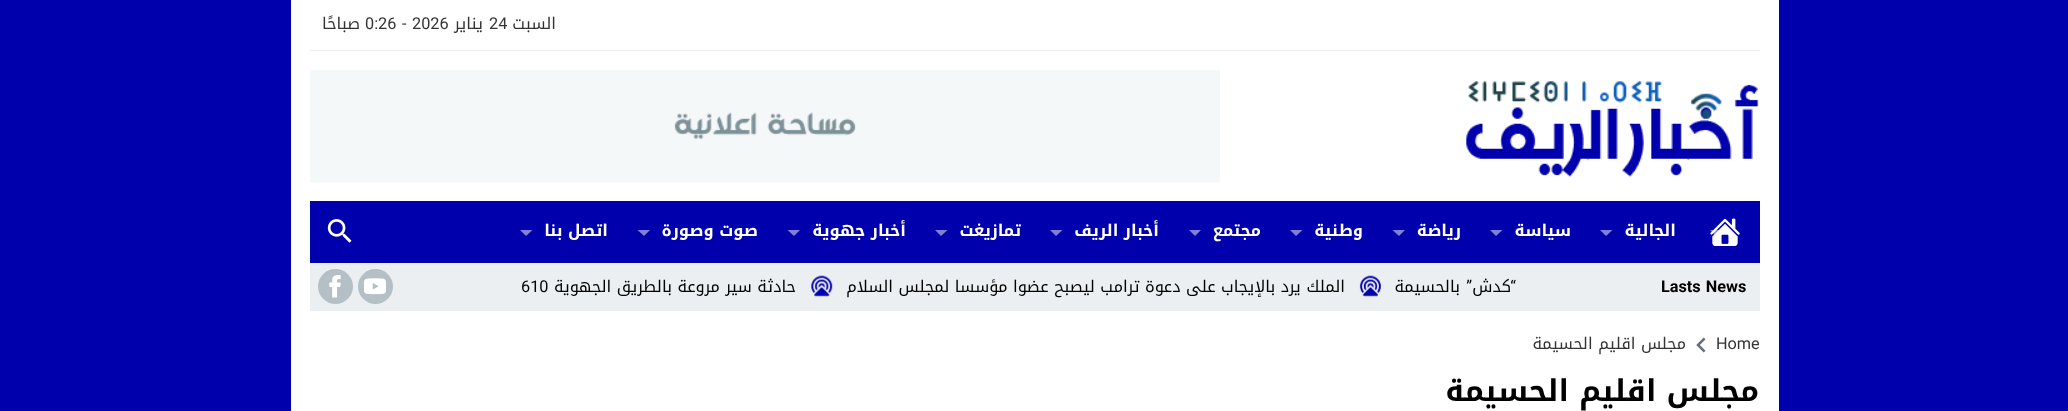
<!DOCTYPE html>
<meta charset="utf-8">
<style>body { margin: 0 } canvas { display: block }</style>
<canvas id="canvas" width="2068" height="411"></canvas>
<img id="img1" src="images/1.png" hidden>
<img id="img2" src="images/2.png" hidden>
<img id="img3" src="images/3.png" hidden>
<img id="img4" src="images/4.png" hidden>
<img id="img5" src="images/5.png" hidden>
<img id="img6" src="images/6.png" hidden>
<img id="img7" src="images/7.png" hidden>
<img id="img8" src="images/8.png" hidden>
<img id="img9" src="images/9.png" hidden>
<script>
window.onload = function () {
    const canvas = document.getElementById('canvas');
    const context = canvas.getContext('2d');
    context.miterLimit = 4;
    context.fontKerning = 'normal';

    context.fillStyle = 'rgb(0, 0, 172)';
    context.fillRect(0, 0, 2068, 411);
    context.fillStyle = 'rgb(255, 255, 255)';
    context.fillRect(291, 0, 1488, 411);
    context.fillStyle = 'rgb(233, 237, 240)';
    context.fillRect(310, 50, 1450, 1);
    context.drawImage(document.getElementById('img1'), 1466, 81, 293, 96);
    context.drawImage(document.getElementById('img2'), 310, 70, 910, 113);
    context.fillStyle = 'rgb(0, 0, 172)';
    context.fillRect(310, 201, 1450, 62);
    context.drawImage(document.getElementById('img3'), 1710, 218, 30, 28);
    context.fillStyle = 'rgba(255, 255, 255, 0.5)';
    context.beginPath();
    context.moveTo(1710, 230);
    context.lineTo(1722.5, 230);
    context.lineTo(1716, 236);
    context.closePath();
    context.fill();
    context.fillStyle = 'rgb(128, 128, 214)';
    context.beginPath();
    context.moveTo(1600, 230);
    context.lineTo(1612.5, 230);
    context.lineTo(1606, 236);
    context.closePath();
    context.fill();
    context.beginPath();
    context.moveTo(1490, 230);
    context.lineTo(1502.5, 230);
    context.lineTo(1496, 236);
    context.closePath();
    context.fill();
    context.beginPath();
    context.moveTo(1392.5, 230);
    context.lineTo(1405, 230);
    context.lineTo(1399, 236);
    context.closePath();
    context.fill();
    context.beginPath();
    context.moveTo(1290, 230);
    context.lineTo(1302.5, 230);
    context.lineTo(1296, 236);
    context.closePath();
    context.fill();
    context.beginPath();
    context.moveTo(1189, 230);
    context.lineTo(1201, 230);
    context.lineTo(1195, 236);
    context.closePath();
    context.fill();
    context.beginPath();
    context.moveTo(1050, 230);
    context.lineTo(1062.5, 230);
    context.lineTo(1056, 236);
    context.closePath();
    context.fill();
    context.beginPath();
    context.moveTo(935, 230);
    context.lineTo(947.5, 230);
    context.lineTo(941, 236);
    context.closePath();
    context.fill();
    context.beginPath();
    context.moveTo(787.5, 230);
    context.lineTo(800, 230);
    context.lineTo(794, 236);
    context.closePath();
    context.fill();
    context.beginPath();
    context.moveTo(637.5, 230);
    context.lineTo(650, 230);
    context.lineTo(644, 236);
    context.closePath();
    context.fill();
    context.beginPath();
    context.moveTo(520, 230);
    context.lineTo(532.5, 230);
    context.lineTo(526, 236);
    context.closePath();
    context.fill();
    context.drawImage(document.getElementById('img4'), 327, 219, 25, 24);
    context.fillStyle = 'rgb(236, 239, 241)';
    context.fillRect(310, 263, 1450, 48);
    context.drawImage(document.getElementById('img5'), 1359, 275, 22, 22);
    context.drawImage(document.getElementById('img6'), 811, 275, 22, 22);
    context.fillStyle = 'rgb(180, 191, 198)';
    context.beginPath();
    context.arc(375.5, 286.5, 17.5, 0, 2 * Math.PI);
    context.fill();
    context.drawImage(document.getElementById('img7'), 364, 278, 22, 17);
    context.beginPath();
    context.arc(335.5, 286.5, 17.5, 0, 2 * Math.PI);
    context.fill();
    context.drawImage(document.getElementById('img8'), 329, 275, 12, 23);
    context.drawImage(document.getElementById('img9'), 1696, 337, 10, 16);
    context.direction = 'rtl';
    context.font = '16.25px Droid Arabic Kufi';
    context.fillStyle = 'rgb(51, 51, 51)';
    context.fillText('السبت', 556, 29);
    context.direction = 'ltr';
    context.font = '16.25px Roboto';
    context.fillText('24', 489, 29);
    context.direction = 'rtl';
    context.font = '16.25px Droid Arabic Kufi';
    context.fillText('يناير', 483, 29);
    context.direction = 'ltr';
    context.font = '16.25px Roboto';
    context.fillText('2026', 412, 29);
    context.fillText('-', 402, 29);
    context.fillText('0:26', 365, 29);
    context.direction = 'rtl';
    context.font = '16.25px Droid Arabic Kufi';
    context.fillText('صباحًا', 360, 29);
    context.font = 'bold 16.25px Droid Arabic Kufi';
    context.fillStyle = 'rgb(255, 255, 255)';
    context.fillText('الجالية', 1676, 236);
    context.fillText('سياسة', 1571, 236);
    context.fillText('رياضة', 1461, 236);
    context.fillText('وطنية', 1363, 236);
    context.fillText('مجتمع', 1261, 236);
    context.fillText('أخبار الريف', 1159, 236);
    context.fillText('تمازيغت', 1021, 236);
    context.fillText('أخبار جهوية', 906, 236);
    context.fillText('صوت وصورة', 758, 236);
    context.fillText('اتصل بنا', 608, 236);
    context.wordSpacing = '1px';
    context.direction = 'ltr';
    context.font = 'bold 16.25px Roboto';
    context.fillStyle = 'rgb(0, 0, 0)';
    context.fillText('Lasts News', 1661, 292);
    context.wordSpacing = '0px';
    context.direction = 'rtl';
    context.font = '16.25px Roboto';
    context.fillText('“', 1516, 292);
    context.font = '16.25px Droid Arabic Kufi';
    context.fillText('كدش', 1511, 292);
    context.font = '16.25px Roboto';
    context.fillText('”', 1472, 292);
    context.font = '16.25px Droid Arabic Kufi';
    context.fillText('بالحسيمة', 1460, 292);
    context.fillText('الملك يرد بالإيجاب على دعوة ترامب ليصبح عضوا مؤسسا لمجلس السلام', 1345, 292);
    context.fillText('حادثة سير مروعة بالطريق الجهوية', 796, 292);
    context.direction = 'ltr';
    context.font = '16.25px Roboto';
    context.fillText('610', 521, 292);
    context.fillStyle = 'rgb(51, 51, 51)';
    context.fillText('Home', 1716, 349);
    context.direction = 'rtl';
    context.font = '16.25px Droid Arabic Kufi';
    context.fillText('مجلس اقليم الحسيمة', 1686, 349);
    context.font = 'bold 30px Droid Arabic Kufi';
    context.fillStyle = 'rgb(0, 0, 0)';
    context.fillText('مجلس اقليم الحسيمة', 1759, 401);
};
</script>
